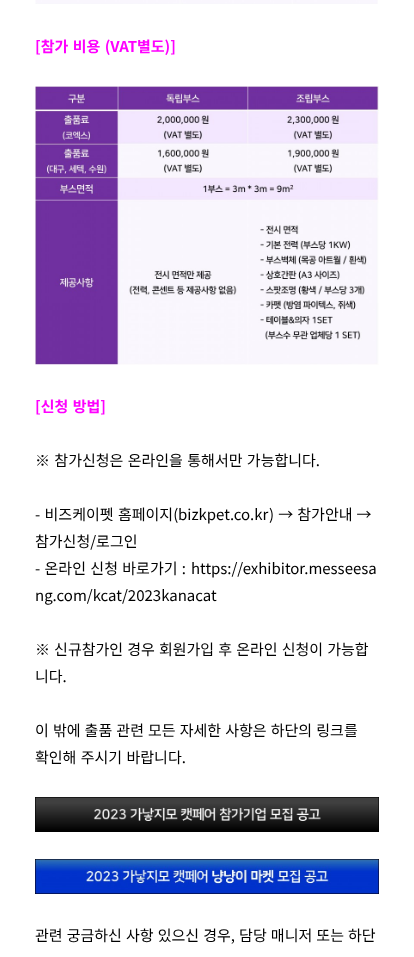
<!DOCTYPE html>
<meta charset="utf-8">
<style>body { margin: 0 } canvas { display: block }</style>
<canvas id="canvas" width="414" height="957"></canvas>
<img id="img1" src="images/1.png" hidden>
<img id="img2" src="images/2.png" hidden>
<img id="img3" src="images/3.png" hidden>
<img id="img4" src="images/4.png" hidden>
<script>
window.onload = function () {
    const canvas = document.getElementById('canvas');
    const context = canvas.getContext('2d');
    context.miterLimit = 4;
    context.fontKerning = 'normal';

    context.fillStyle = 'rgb(255, 255, 255)';
    context.fillRect(0, 0, 414, 957);
    context.drawImage(document.getElementById('img1'), 35, 0, 343, 4);
    context.drawImage(document.getElementById('img2'), 35, 86, 344, 279);
    context.drawImage(document.getElementById('img3'), 35, 797, 344, 35);
    context.drawImage(document.getElementById('img4'), 35, 859, 344, 35);
    context.wordSpacing = '1px';
    context.font = 'bold 15px Noto Sans KR';
    context.fillStyle = 'rgb(255, 0, 255)';
    context.fillText('[참가 비용 (VAT별도)]', 35, 52);
    context.fillText('[신청 방법]', 35, 412);
    context.font = '15px Noto Sans KR';
    context.fillStyle = 'rgb(0, 0, 0)';
    context.fillText('※ 참가신청은 온라인을 통해서만 가능합니다.', 35, 466);
    context.fillText('- 비즈케이펫 홈페이지(', 35, 520);
    context.wordSpacing = '0px';
    context.fillText('bizkpet.co.kr', 178, 520);
    context.wordSpacing = '0.75px';
    context.fillText(') → 참가안내 →', 269, 520);
    context.wordSpacing = '0px';
    context.fillText('참가신청/로그인', 35, 547);
    context.wordSpacing = '1px';
    context.fillText('- 온라인 신청 바로가기 :', 35, 574);
    context.wordSpacing = '0px';
    context.fillText('https://exhibitor.messeesa', 191, 574);
    context.fillText('ng.com/kcat/2023kanacat', 35, 601);
    context.wordSpacing = '0.75px';
    context.fillText('※ 신규참가인 경우 회원가입 후 온라인 신청이 가능합', 35, 655);
    context.wordSpacing = '0px';
    context.fillText('니다.', 35, 682);
    context.wordSpacing = '0.75px';
    context.fillText('이 밖에 출품 관련 모든 자세한 사항은 하단의 링크를', 35, 736);
    context.wordSpacing = '1px';
    context.fillText('확인해 주시기 바랍니다.', 35, 763);
    context.wordSpacing = '0.75px';
    context.fillText('관련 궁금하신 사항 있으신 경우, 담당 매니저 또는 하단', 35, 941);
};
</script>
